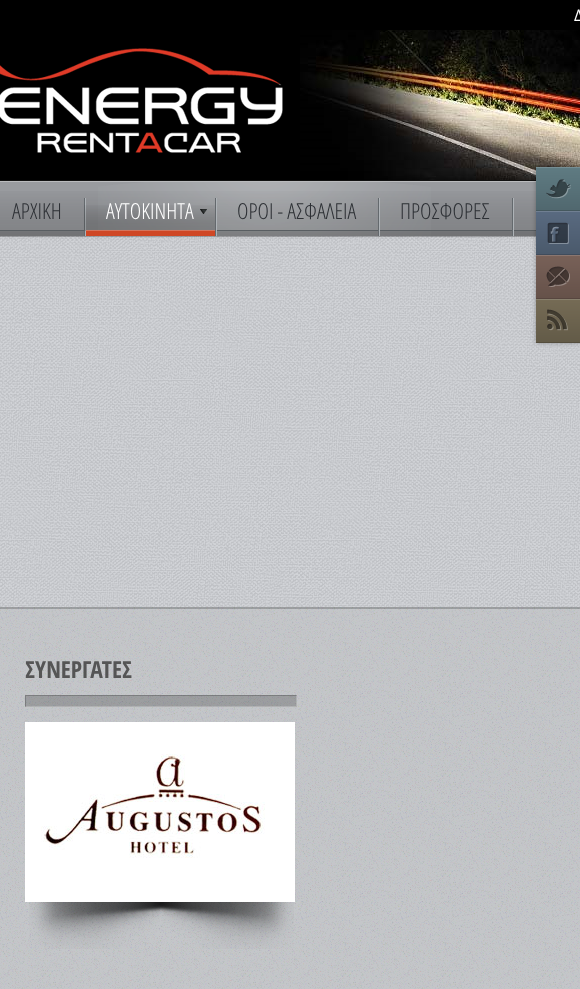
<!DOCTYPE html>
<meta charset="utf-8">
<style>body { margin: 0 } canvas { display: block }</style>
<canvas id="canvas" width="580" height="989"></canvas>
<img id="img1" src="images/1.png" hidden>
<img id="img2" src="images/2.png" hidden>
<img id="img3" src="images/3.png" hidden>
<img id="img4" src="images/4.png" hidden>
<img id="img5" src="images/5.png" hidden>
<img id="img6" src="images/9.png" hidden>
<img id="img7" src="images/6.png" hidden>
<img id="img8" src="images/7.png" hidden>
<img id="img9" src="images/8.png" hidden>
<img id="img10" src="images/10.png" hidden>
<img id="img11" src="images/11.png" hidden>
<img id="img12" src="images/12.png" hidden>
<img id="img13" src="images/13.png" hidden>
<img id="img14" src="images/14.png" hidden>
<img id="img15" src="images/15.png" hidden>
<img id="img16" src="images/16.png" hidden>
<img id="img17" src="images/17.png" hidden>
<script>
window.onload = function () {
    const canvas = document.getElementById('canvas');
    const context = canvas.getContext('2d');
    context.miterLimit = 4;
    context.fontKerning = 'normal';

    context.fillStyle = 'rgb(206, 208, 212)';
    context.fillRect(0, 0, 580, 989);
    context.drawImage(document.getElementById('img1'), 0, 236, 580, 371);
    context.fillStyle = 'rgb(0, 0, 0)';
    context.fillRect(0, 0, 580, 30);
    context.fillRect(0, 30, 300, 150);
    context.drawImage(document.getElementById('img2'), 300, 30, 280, 150);
    context.drawImage(document.getElementById('img3'), 0, 48, 283, 105);
    context.fillStyle = 'rgba(0, 0, 0, 0.3)';
    context.filter = 'blur(2.5px)';
    context.beginPath();
    context.rect(0, 177, 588, 57);
    context.fill();
    context.filter = 'none';
    context.fillStyle = 'rgb(17, 17, 17)';
    context.fillRect(0, 180, 536, 1);
    context.fillStyle = 'rgba(0, 0, 0, 0.2)';
    context.fillRect(0, 236, 536, 1);
    context.fillStyle = 'rgb(153, 155, 159)';
    context.fillRect(0, 182, 536, 54);
    context.drawImage(document.getElementById('img4'), 0, 191, 536, 45);
    context.fillStyle = 'rgb(186, 187, 189)';
    context.fillRect(0, 181, 536, 1);
    context.drawImage(document.getElementById('img5'), 98, 182, 333, 54);
    context.drawImage(document.getElementById('img6'), 0, 231, 536, 5);
    context.fillStyle = 'rgb(89, 94, 98)';
    context.fillRect(0, 230, 536, 1);
    context.drawImage(document.getElementById('img7'), 84, 198, 2, 38);
    context.drawImage(document.getElementById('img8'), 84, 205, 131, 26);
    context.drawImage(document.getElementById('img9'), 200, 209, 7, 5);
    context.fillStyle = 'rgb(207, 71, 37)';
    context.fillRect(86, 231, 129, 5);
    context.fillStyle = 'rgb(212, 117, 93)';
    context.fillRect(86, 230, 129, 1);
    context.drawImage(document.getElementById('img7'), 215, 198, 2, 38);
    context.drawImage(document.getElementById('img7'), 378, 198, 2, 38);
    context.drawImage(document.getElementById('img7'), 512, 198, 2, 38);
    context.fillStyle = 'rgba(0, 0, 0, 0.3)';
    context.filter = 'blur(2px)';
    context.beginPath();
    context.rect(536, 167, 44, 176);
    context.fill();
    context.filter = 'none';
    context.drawImage(document.getElementById('img10'), 536, 167, 44, 44);
    context.drawImage(document.getElementById('img11'), 536, 211, 44, 44);
    context.drawImage(document.getElementById('img12'), 536, 255, 44, 44);
    context.drawImage(document.getElementById('img13'), 536, 299, 44, 44);
    context.fillStyle = 'rgb(196, 198, 201)';
    context.fillRect(0, 607, 580, 382);
    context.drawImage(document.getElementById('img14'), 0, 607, 580, 382);
    context.fillStyle = 'rgba(0, 0, 0, 0.2)';
    context.fillRect(0, 607, 580, 2);
    context.fillRect(25, 695, 272, 12);
    context.beginPath();
    context.moveTo(25, 695);
    context.lineTo(297, 695);
    context.lineTo(296, 696);
    context.lineTo(26, 696);
    context.closePath();
    context.fill();
    context.fillStyle = 'rgba(225, 225, 225, 0.3)';
    context.beginPath();
    context.moveTo(297, 695);
    context.lineTo(297, 707);
    context.lineTo(296, 706);
    context.lineTo(296, 696);
    context.closePath();
    context.fill();
    context.beginPath();
    context.moveTo(297, 707);
    context.lineTo(25, 707);
    context.lineTo(26, 706);
    context.lineTo(296, 706);
    context.closePath();
    context.fill();
    context.fillStyle = 'rgba(0, 0, 0, 0.2)';
    context.beginPath();
    context.moveTo(25, 707);
    context.lineTo(25, 695);
    context.lineTo(26, 696);
    context.lineTo(26, 706);
    context.closePath();
    context.fill();
    context.drawImage(document.getElementById('img15'), 25, 722, 270, 180);
    context.drawImage(document.getElementById('img16'), 29, 902, 131, 47);
    context.drawImage(document.getElementById('img17'), 160, 902, 134, 47);
    context.font = '16px Open Sans';
    context.fillStyle = 'rgb(255, 255, 255)';
    context.fillText('Δ', 574, 21);
    context.font = '300 22px Open Sans Condensed';
    context.fillStyle = 'rgb(45, 48, 53)';
    context.fillText('ΑΡΧΙΚΗ', 12, 219);
    context.fillStyle = 'rgb(255, 255, 255)';
    context.fillText('ΑΥΤΟΚΙΝΗΤΑ', 106, 219);
    context.fillStyle = 'rgb(45, 48, 53)';
    context.fillText('ΟΡΟΙ - ΑΣΦΑΛΕΙΑ', 237, 219);
    context.fillText('ΠΡΟΣΦΟΡΕΣ', 400, 219);
    context.font = 'bold 23.5px Open Sans Condensed';
    context.fillStyle = 'rgb(85, 85, 85)';
    context.fillText('ΣΥΝΕΡΓΑΤΕΣ', 25, 678);
};
</script>
